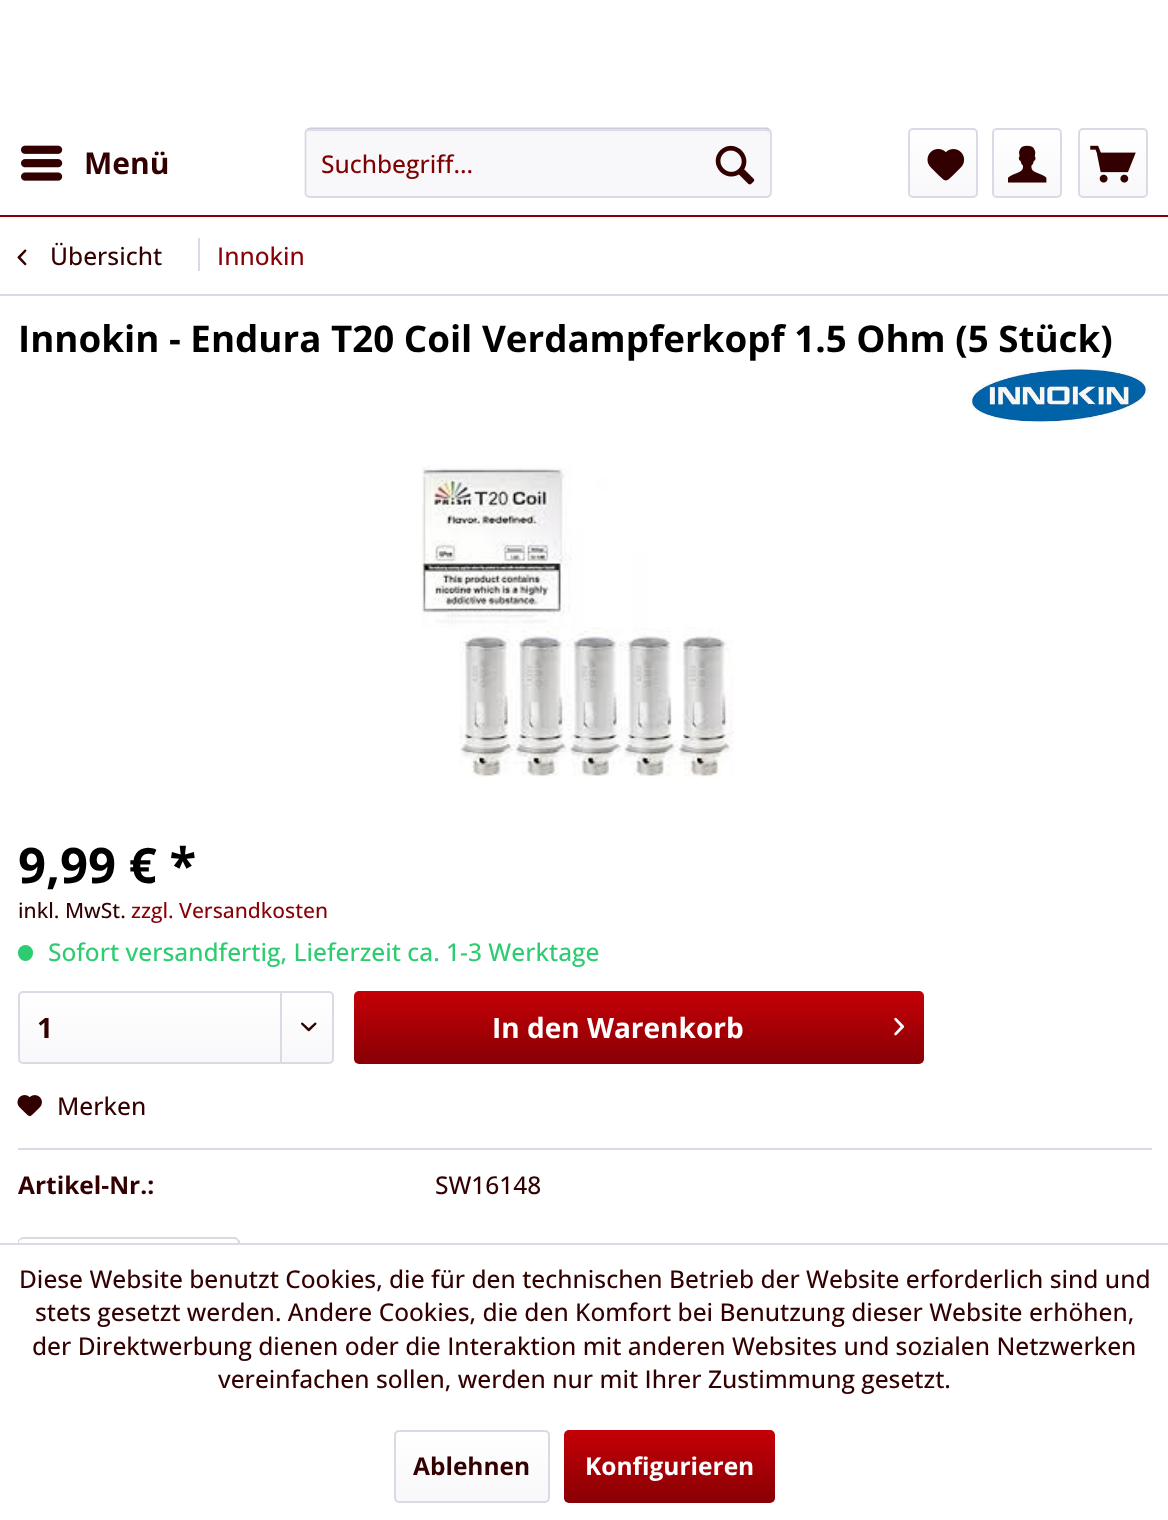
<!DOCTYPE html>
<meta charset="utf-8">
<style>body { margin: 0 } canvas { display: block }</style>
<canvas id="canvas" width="1168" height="1520"></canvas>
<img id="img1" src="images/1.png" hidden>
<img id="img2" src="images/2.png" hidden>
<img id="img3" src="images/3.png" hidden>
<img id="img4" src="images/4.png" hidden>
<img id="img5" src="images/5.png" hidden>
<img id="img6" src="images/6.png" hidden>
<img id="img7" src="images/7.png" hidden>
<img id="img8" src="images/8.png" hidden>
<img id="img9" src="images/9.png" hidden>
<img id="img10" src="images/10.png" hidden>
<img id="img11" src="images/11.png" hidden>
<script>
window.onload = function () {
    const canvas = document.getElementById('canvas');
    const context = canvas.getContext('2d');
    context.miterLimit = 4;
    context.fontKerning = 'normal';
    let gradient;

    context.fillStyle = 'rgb(255, 255, 255)';
    context.fillRect(0, 0, 1168, 1520);
    context.fillStyle = 'rgb(136, 0, 5)';
    context.fillRect(0, 215, 1168, 2);
    context.drawImage(document.getElementById('img1'), 21, 145, 42, 36);
    context.fillStyle = 'rgb(248, 248, 250)';
    context.beginPath();
    context.roundRect(305, 128, 467, 70, 5);
    context.fill();
    context.fillStyle = 'rgb(218, 218, 229)';
    context.beginPath();
    context.moveTo(310, 131);
    context.lineTo(766, 131);
    context.bezierCurveTo(768, 131, 770, 133, 770, 135);
    context.bezierCurveTo(770, 132, 769, 130, 766, 130);
    context.lineTo(310, 130);
    context.lineTo(308, 131);
    context.lineTo(307, 132);
    context.lineTo(306, 135);
    context.bezierCurveTo(306, 133, 308, 131, 310, 131);
    context.closePath();
    context.fill();
    context.beginPath();
    context.moveTo(306.5, 130);
    context.lineTo(310, 128.5);
    context.lineTo(767, 128.5);
    context.lineTo(769.5, 130);
    context.strokeStyle = 'rgb(203, 203, 219)';
    context.lineWidth = 1.8;
    context.stroke();
    context.beginPath();
    context.moveTo(769.5, 130);
    context.bezierCurveTo(770.5, 130.5, 771, 132, 771, 133);
    context.lineTo(771, 192.5);
    context.bezierCurveTo(771, 193.5, 770.5, 195, 769.5, 195.5);
    context.bezierCurveTo(769, 196.5, 767.5, 197, 766.5, 197);
    context.lineTo(310, 197);
    context.bezierCurveTo(308.5, 197, 307.5, 196.5, 306.5, 195.5);
    context.bezierCurveTo(306, 195, 305.5, 193.5, 305.5, 192.5);
    context.lineTo(305.5, 133);
    context.bezierCurveTo(305.5, 132, 306, 130.5, 306.5, 130);
    context.strokeStyle = 'rgb(218, 218, 229)';
    context.stroke();
    context.drawImage(document.getElementById('img2'), 715, 145, 40, 40);
    gradient = context.createLinearGradient(943, 130, 943, 196);
    gradient.addColorStop(0, 'rgb(255, 255, 255)');
    gradient.addColorStop(1, 'rgb(248, 248, 250)');
    context.fillStyle = gradient;
    context.beginPath();
    context.roundRect(910, 130, 67, 66, 4);
    context.fill();
    context.beginPath();
    context.roundRect(909, 129, 68, 68, 4);
    context.lineWidth = 2;
    context.stroke();
    context.drawImage(document.getElementById('img3'), 927, 149, 38, 32);
    gradient = context.createLinearGradient(1027, 130, 1027, 196);
    gradient.addColorStop(0, 'rgb(255, 255, 255)');
    gradient.addColorStop(1, 'rgb(248, 248, 250)');
    context.fillStyle = gradient;
    context.beginPath();
    context.roundRect(994, 130, 67, 66, 4);
    context.fill();
    context.beginPath();
    context.roundRect(993, 129, 68, 68, 4);
    context.stroke();
    context.drawImage(document.getElementById('img4'), 1008, 145, 39, 38);
    gradient = context.createLinearGradient(1113, 130, 1113, 196);
    gradient.addColorStop(0, 'rgb(255, 255, 255)');
    gradient.addColorStop(1, 'rgb(248, 248, 250)');
    context.fillStyle = gradient;
    context.beginPath();
    context.roundRect(1080, 130, 66, 66, 4);
    context.fill();
    context.beginPath();
    context.roundRect(1079, 129, 68, 68, 4);
    context.stroke();
    context.drawImage(document.getElementById('img5'), 1090, 145, 46, 38);
    context.fillStyle = 'rgb(218, 218, 229)';
    context.fillRect(0, 294, 1168, 2);
    context.drawImage(document.getElementById('img6'), 17, 249, 10, 17);
    context.fillRect(198, 238, 2, 33);
    context.drawImage(document.getElementById('img7'), 969, 367, 180, 57);
    context.drawImage(document.getElementById('img8'), 421, 465, 313, 312);
    context.fillStyle = 'rgb(46, 204, 113)';
    context.beginPath();
    context.roundRect(18, 945, 15, 16, 7.5);
    context.fill();
    gradient = context.createLinearGradient(176, 992, 176, 1062);
    gradient.addColorStop(0, 'rgb(255, 255, 255)');
    gradient.addColorStop(1, 'rgb(248, 248, 250)');
    context.fillStyle = gradient;
    context.beginPath();
    context.roundRect(19, 992, 314, 70, 4);
    context.fill();
    context.beginPath();
    context.roundRect(19, 992, 314, 71, 4);
    context.stroke();
    context.fillStyle = 'rgb(218, 218, 229)';
    context.fillRect(280, 992, 2, 70);
    context.drawImage(document.getElementById('img9'), 301, 1022, 16, 10);
    gradient = context.createLinearGradient(639, 991, 639, 1064);
    gradient.addColorStop(0, 'rgb(197, 0, 7)');
    gradient.addColorStop(1, 'rgb(136, 0, 5)');
    context.fillStyle = gradient;
    context.beginPath();
    context.roundRect(354, 991, 570, 73, 5);
    context.fill();
    context.drawImage(document.getElementById('img10'), 894, 1017, 11, 19);
    context.fillStyle = 'rgb(218, 218, 229)';
    context.fillRect(18, 1148, 1134, 2);
    context.drawImage(document.getElementById('img11'), 17, 1095, 25, 21);
    context.beginPath();
    context.moveTo(23, 1239);
    context.lineTo(20, 1240);
    context.lineTo(19, 1239);
    context.lineTo(22, 1237);
    context.lineTo(236, 1237);
    context.lineTo(238, 1239);
    context.lineTo(237, 1240);
    context.lineTo(234, 1239);
    context.closePath();
    context.fill();
    context.beginPath();
    context.moveTo(238, 1239);
    context.lineTo(240, 1241);
    context.lineTo(240, 1318);
    context.lineTo(238, 1316);
    context.lineTo(238, 1242);
    context.lineTo(237, 1240);
    context.closePath();
    context.fill();
    context.beginPath();
    context.moveTo(18, 1317);
    context.lineTo(18, 1242);
    context.bezierCurveTo(18, 1241, 18, 1240, 19, 1239);
    context.lineTo(20, 1240);
    context.lineTo(19, 1242);
    context.lineTo(19, 1316);
    context.closePath();
    context.fill();
    context.fillStyle = 'rgb(255, 255, 255)';
    context.fillRect(18, 1245, 222, 73);
    context.fillStyle = 'rgb(218, 218, 229)';
    context.fillRect(0, 1243, 1168, 2);
    gradient = context.createLinearGradient(472, 1432, 472, 1502);
    gradient.addColorStop(0, 'rgb(255, 255, 255)');
    gradient.addColorStop(1, 'rgb(248, 248, 250)');
    context.fillStyle = gradient;
    context.beginPath();
    context.roundRect(396, 1432, 152, 70, 4);
    context.fill();
    context.beginPath();
    context.roundRect(395, 1431, 154, 71, 4);
    context.stroke();
    gradient = context.createLinearGradient(669, 1430, 669, 1503);
    gradient.addColorStop(0, 'rgb(197, 0, 7)');
    gradient.addColorStop(1, 'rgb(136, 0, 5)');
    context.fillStyle = gradient;
    context.beginPath();
    context.roundRect(564, 1430, 211, 73, 5);
    context.fill();
    context.font = 'bold 30px Open Sans';
    context.fillStyle = 'rgb(51, 0, 1)';
    context.fillText('Menü', 84, 174);
    context.font = '500 24.5px Open Sans';
    context.fillStyle = 'rgb(128, 0, 2)';
    context.fillText('Suchbegriff...', 321, 173);
    context.fillStyle = 'rgb(51, 0, 1)';
    context.fillText('Übersicht', 50, 265);
    context.fillStyle = 'rgb(136, 0, 5)';
    context.fillText('Innokin', 217, 265);
    context.font = 'bold 36.75px Open Sans';
    context.fillStyle = 'rgb(0, 0, 0)';
    context.fillText('Innokin - Endura T20 Coil Verdampferkopf 1.5 Ohm (5 Stück)', 18, 352);
    context.font = 'bold 49px Open Sans';
    context.fillText('9,99 € *', 18, 883);
    context.font = '500 21px Open Sans';
    context.fillStyle = 'rgb(51, 0, 1)';
    context.fillText('inkl. MwSt.', 18, 918);
    context.fillStyle = 'rgb(136, 0, 5)';
    context.fillText('zzgl. Versandkosten', 131, 918);
    context.font = '500 24.5px Open Sans';
    context.fillStyle = 'rgb(46, 204, 113)';
    context.fillText('Sofort versandfertig, Lieferzeit ca. 1-3 Werktage', 48, 961);
    context.font = 'bold 28px Open Sans';
    context.fillStyle = 'rgb(51, 0, 1)';
    context.fillText('1', 37, 1038);
    context.fillStyle = 'rgb(255, 255, 255)';
    context.fillText('In den Warenkorb', 492, 1038);
    context.font = '500 24.5px Open Sans';
    context.fillStyle = 'rgb(51, 0, 1)';
    context.fillText('Merken', 57, 1115);
    context.font = 'bold 24.5px Open Sans';
    context.fillText('Artikel-Nr.:', 18, 1194);
    context.font = '500 24.5px Open Sans';
    context.fillText('SW16148', 435, 1194);
    context.fillText('Diese Website benutzt Cookies, die für den technischen Betrieb der Website erforderlich sind und', 19, 1288);
    context.fillText('stets gesetzt werden. Andere Cookies, die den Komfort bei Benutzung dieser Website erhöhen,', 35, 1321);
    context.fillText('der Direktwerbung dienen oder die Interaktion mit anderen Websites und sozialen Netzwerken', 32, 1355);
    context.fillText('vereinfachen sollen, werden nur mit Ihrer Zustimmung gesetzt.', 218, 1388);
    context.font = 'bold 24.5px Open Sans';
    context.fillText('Ablehnen', 413, 1475);
    context.fillStyle = 'rgb(255, 255, 255)';
    context.fillText('Konfigurieren', 585, 1475);
};
</script>
